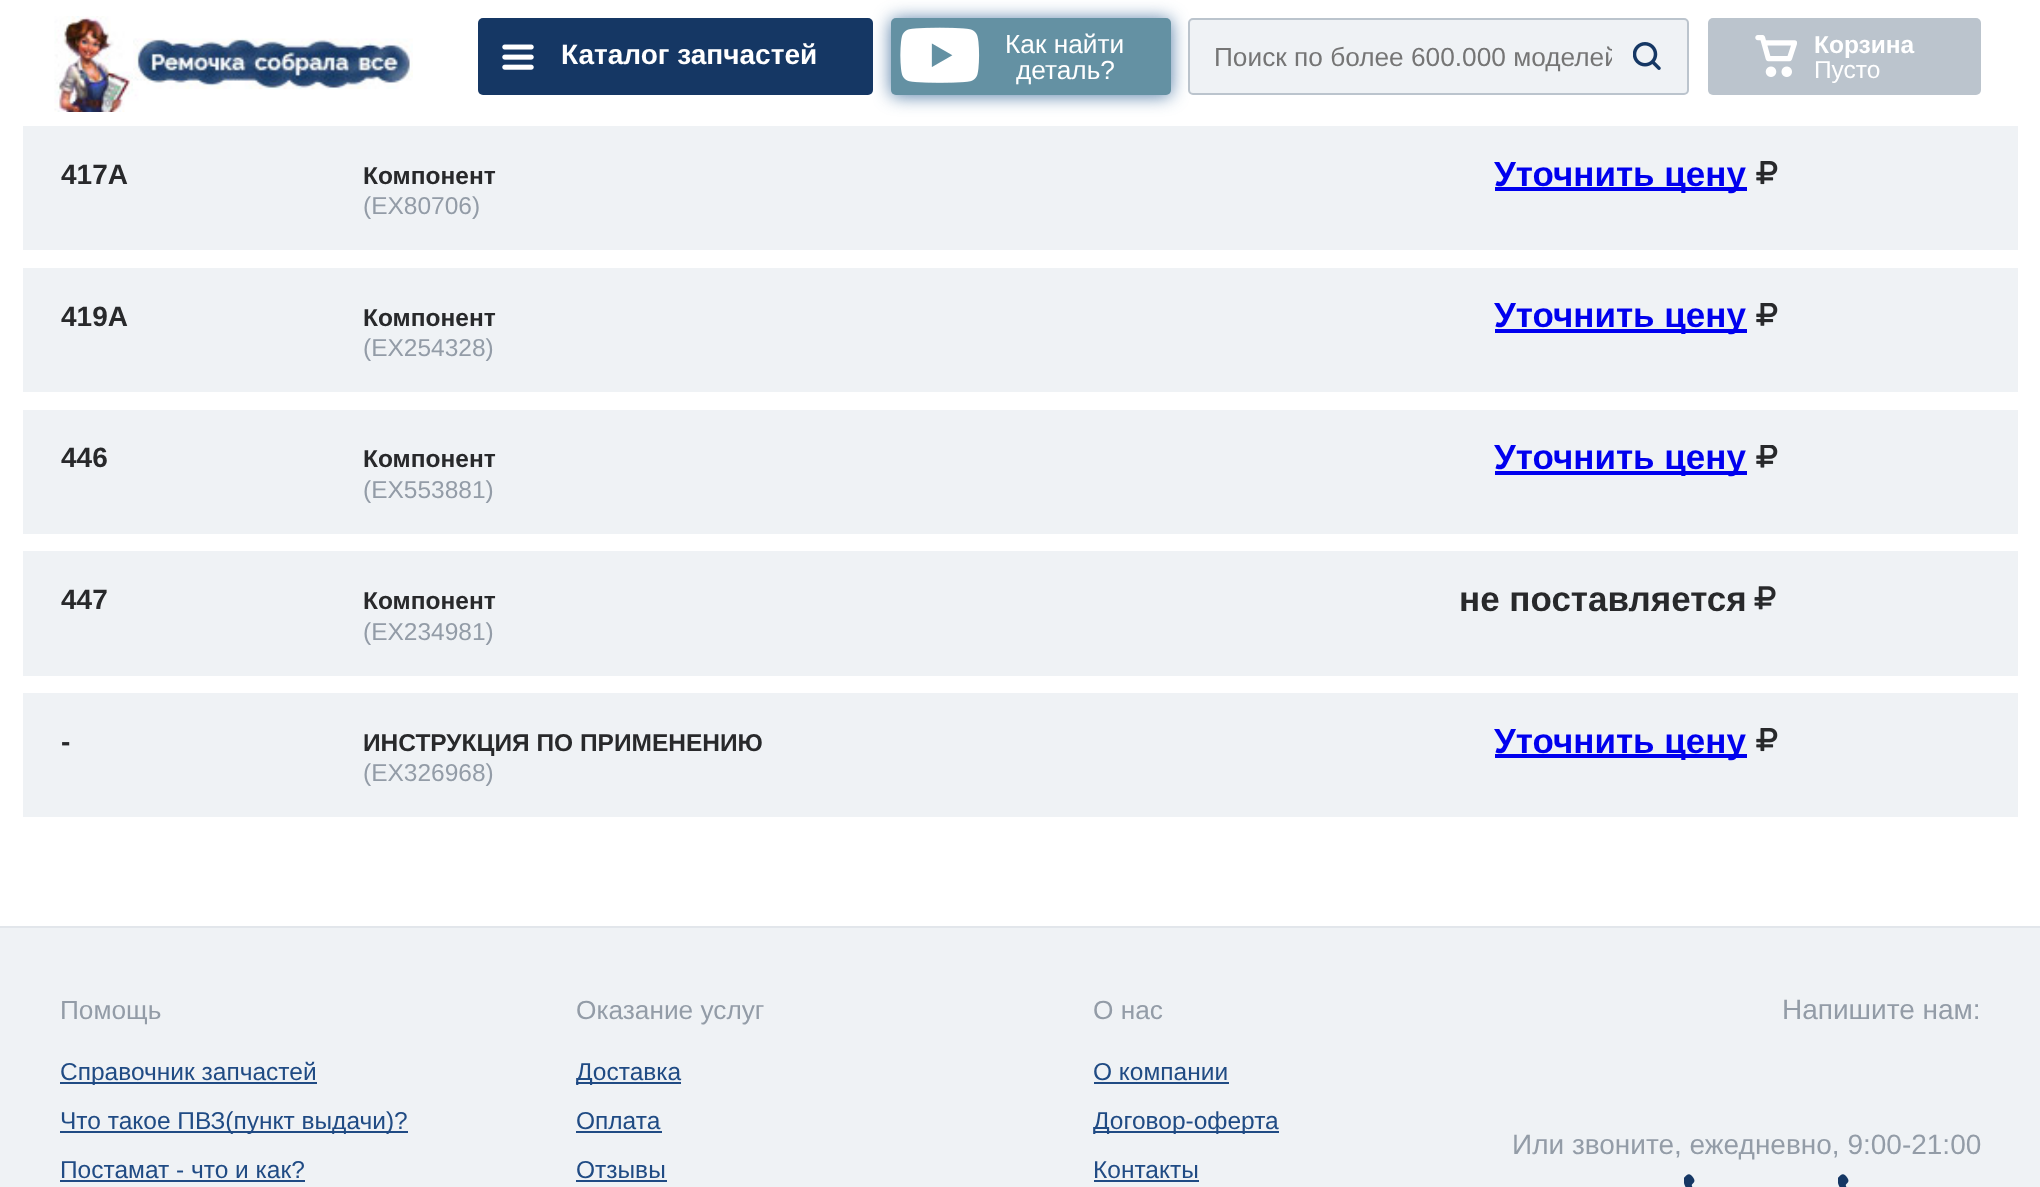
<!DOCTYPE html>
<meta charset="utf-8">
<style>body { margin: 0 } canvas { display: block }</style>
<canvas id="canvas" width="2040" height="1187"></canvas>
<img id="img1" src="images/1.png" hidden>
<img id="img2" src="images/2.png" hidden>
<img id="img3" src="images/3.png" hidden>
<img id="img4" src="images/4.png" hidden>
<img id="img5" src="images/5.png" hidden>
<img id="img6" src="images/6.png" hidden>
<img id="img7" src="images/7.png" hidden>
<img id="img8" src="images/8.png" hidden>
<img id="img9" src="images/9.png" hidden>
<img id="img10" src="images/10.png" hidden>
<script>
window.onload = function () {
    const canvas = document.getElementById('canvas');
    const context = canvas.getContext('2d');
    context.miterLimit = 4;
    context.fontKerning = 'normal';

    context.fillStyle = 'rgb(255, 255, 255)';
    context.fillRect(0, 0, 2040, 1187);
    context.drawImage(document.getElementById('img1'), 54, 16, 359, 96);
    context.fillStyle = 'rgba(25, 82, 138, 0.75)';
    context.filter = 'blur(9px)';
    context.beginPath();
    context.roundRect(891, 19, 280, 77, 5);
    context.fill();
    context.filter = 'none';
    context.fillStyle = 'rgb(21, 55, 100)';
    context.beginPath();
    context.roundRect(478, 18, 395, 77, 5);
    context.fill();
    context.drawImage(document.getElementById('img2'), 502, 44, 32, 26);
    context.fillStyle = 'rgb(100, 145, 163)';
    context.beginPath();
    context.roundRect(891, 18, 280, 77, 5);
    context.fill();
    context.drawImage(document.getElementById('img3'), 900, 27, 80, 56);
    context.fillStyle = 'rgb(239, 242, 245)';
    context.beginPath();
    context.roundRect(1189, 19, 499, 75, 4);
    context.fill();
    context.strokeStyle = 'rgb(187, 196, 205)';
    context.lineWidth = 2;
    context.stroke();
    context.drawImage(document.getElementById('img4'), 1633, 42, 28, 28);
    context.fillStyle = 'rgb(187, 196, 205)';
    context.beginPath();
    context.roundRect(1708, 18, 273, 77, 5);
    context.fill();
    context.drawImage(document.getElementById('img5'), 1755, 35, 42, 42);
    context.fillStyle = 'rgb(239, 242, 245)';
    context.fillRect(23, 126, 1995, 124);
    context.fillStyle = 'rgb(0, 0, 238)';
    context.fillRect(1495, 187, 252, 4);
    context.drawImage(document.getElementById('img6'), 1756, 161, 22, 24);
    context.fillStyle = 'rgb(239, 242, 245)';
    context.fillRect(23, 268, 1995, 124);
    context.fillStyle = 'rgb(0, 0, 238)';
    context.fillRect(1495, 329, 252, 4);
    context.drawImage(document.getElementById('img7'), 1756, 303, 22, 23);
    context.fillStyle = 'rgb(239, 242, 245)';
    context.fillRect(23, 410, 1995, 124);
    context.fillStyle = 'rgb(0, 0, 238)';
    context.fillRect(1495, 471, 252, 4);
    context.drawImage(document.getElementById('img8'), 1756, 445, 22, 23);
    context.fillStyle = 'rgb(239, 242, 245)';
    context.fillRect(23, 551, 1995, 125);
    context.drawImage(document.getElementById('img9'), 1754, 586, 22, 24);
    context.fillRect(23, 693, 1995, 124);
    context.fillStyle = 'rgb(0, 0, 238)';
    context.fillRect(1495, 754, 252, 4);
    context.drawImage(document.getElementById('img6'), 1756, 728, 22, 24);
    context.fillStyle = 'rgb(239, 242, 245)';
    context.fillRect(0, 928, 2040, 259);
    context.fillStyle = 'rgb(226, 230, 235)';
    context.fillRect(0, 926, 2040, 2);
    context.fillStyle = 'rgb(32, 75, 132)';
    context.fillRect(60, 1082, 257, 2);
    context.fillRect(60, 1131, 348, 2);
    context.fillRect(60, 1180, 245, 2);
    context.fillRect(576, 1082, 105, 2);
    context.fillRect(576, 1131, 86, 2);
    context.fillRect(576, 1180, 91, 2);
    context.fillRect(1094, 1082, 135, 2);
    context.fillRect(1094, 1131, 185, 2);
    context.fillRect(1094, 1180, 105, 2);
    context.drawImage(document.getElementById('img10'), 1684, 1174, 165, 13);
    context.font = 'bold 28px Liberation Sans';
    context.fillStyle = 'rgb(255, 255, 255)';
    context.fillText('Каталог запчастей', 561, 64);
    context.font = '26.25px Liberation Sans';
    context.fillText('Как найти', 1005, 53);
    context.fillText('деталь?', 1016, 79);
    context.save();
    context.beginPath();
    context.rect(1190, 42, 422, 30);
    context.clip();
    context.fillStyle = 'rgb(117, 117, 117)';
    context.fillText('Поиск по более 600.000 моделей', 1214, 66);
    context.restore();
    context.font = 'bold 24.5px Liberation Sans';
    context.fillText('Корзина', 1814, 53);
    context.font = '24.5px Liberation Sans';
    context.fillText('Пусто', 1814, 78);
    context.font = 'bold 28px Liberation Sans';
    context.fillStyle = 'rgb(40, 41, 43)';
    context.fillText('417A', 61, 184);
    context.font = 'bold 24.5px Liberation Sans';
    context.fillText('Компонент', 363, 184);
    context.font = '24.5px Liberation Sans';
    context.fillStyle = 'rgb(147, 156, 167)';
    context.fillText('(EX80706)', 363, 214);
    context.font = 'bold 35px Liberation Sans';
    context.fillStyle = 'rgb(0, 0, 238)';
    context.fillText('Уточнить цену', 1494, 186);
    context.font = 'bold 28px Liberation Sans';
    context.fillStyle = 'rgb(40, 41, 43)';
    context.fillText('419A', 61, 326);
    context.font = 'bold 24.5px Liberation Sans';
    context.fillText('Компонент', 363, 326);
    context.font = '24.5px Liberation Sans';
    context.fillStyle = 'rgb(147, 156, 167)';
    context.fillText('(EX254328)', 363, 356);
    context.font = 'bold 35px Liberation Sans';
    context.fillStyle = 'rgb(0, 0, 238)';
    context.fillText('Уточнить цену', 1494, 327);
    context.font = 'bold 28px Liberation Sans';
    context.fillStyle = 'rgb(40, 41, 43)';
    context.fillText('446', 61, 467);
    context.font = 'bold 24.5px Liberation Sans';
    context.fillText('Компонент', 363, 467);
    context.font = '24.5px Liberation Sans';
    context.fillStyle = 'rgb(147, 156, 167)';
    context.fillText('(EX553881)', 363, 498);
    context.font = 'bold 35px Liberation Sans';
    context.fillStyle = 'rgb(0, 0, 238)';
    context.fillText('Уточнить цену', 1494, 469);
    context.font = 'bold 28px Liberation Sans';
    context.fillStyle = 'rgb(40, 41, 43)';
    context.fillText('447', 61, 609);
    context.font = 'bold 24.5px Liberation Sans';
    context.fillText('Компонент', 363, 609);
    context.font = '24.5px Liberation Sans';
    context.fillStyle = 'rgb(147, 156, 167)';
    context.fillText('(EX234981)', 363, 640);
    context.font = 'bold 35px Liberation Sans';
    context.fillStyle = 'rgb(40, 41, 43)';
    context.fillText('не поставляется', 1459, 611);
    context.font = 'bold 28px Liberation Sans';
    context.fillText('-', 61, 751);
    context.font = 'bold 24.5px Liberation Sans';
    context.fillText('ИНСТРУКЦИЯ ПО ПРИМЕНЕНИЮ', 363, 751);
    context.font = '24.5px Liberation Sans';
    context.fillStyle = 'rgb(147, 156, 167)';
    context.fillText('(EX326968)', 363, 781);
    context.font = 'bold 35px Liberation Sans';
    context.fillStyle = 'rgb(0, 0, 238)';
    context.fillText('Уточнить цену', 1494, 753);
    context.font = '26.25px Liberation Sans';
    context.fillStyle = 'rgb(147, 156, 167)';
    context.fillText('Помощь', 60, 1019);
    context.font = '24.5px Liberation Sans';
    context.fillStyle = 'rgb(32, 75, 132)';
    context.fillText('Справочник запчастей', 60, 1080);
    context.fillText('Что такое ПВЗ(пункт выдачи)?', 60, 1129);
    context.fillText('Постамат - что и как?', 60, 1178);
    context.font = '26.25px Liberation Sans';
    context.fillStyle = 'rgb(147, 156, 167)';
    context.fillText('Оказание услуг', 576, 1019);
    context.font = '24.5px Liberation Sans';
    context.fillStyle = 'rgb(32, 75, 132)';
    context.fillText('Доставка', 576, 1080);
    context.fillText('Оплата', 576, 1129);
    context.fillText('Отзывы', 576, 1178);
    context.font = '26.25px Liberation Sans';
    context.fillStyle = 'rgb(147, 156, 167)';
    context.fillText('О нас', 1093, 1019);
    context.font = '24.5px Liberation Sans';
    context.fillStyle = 'rgb(32, 75, 132)';
    context.fillText('О компании', 1093, 1080);
    context.fillText('Договор-оферта', 1093, 1129);
    context.fillText('Контакты', 1093, 1178);
    context.font = '28px Liberation Sans';
    context.fillStyle = 'rgb(147, 156, 167)';
    context.fillText('Напишите нам:', 1782, 1019);
    context.fillText('Или звоните, ежедневно, 9:00-21:00', 1512, 1154);
};
</script>
